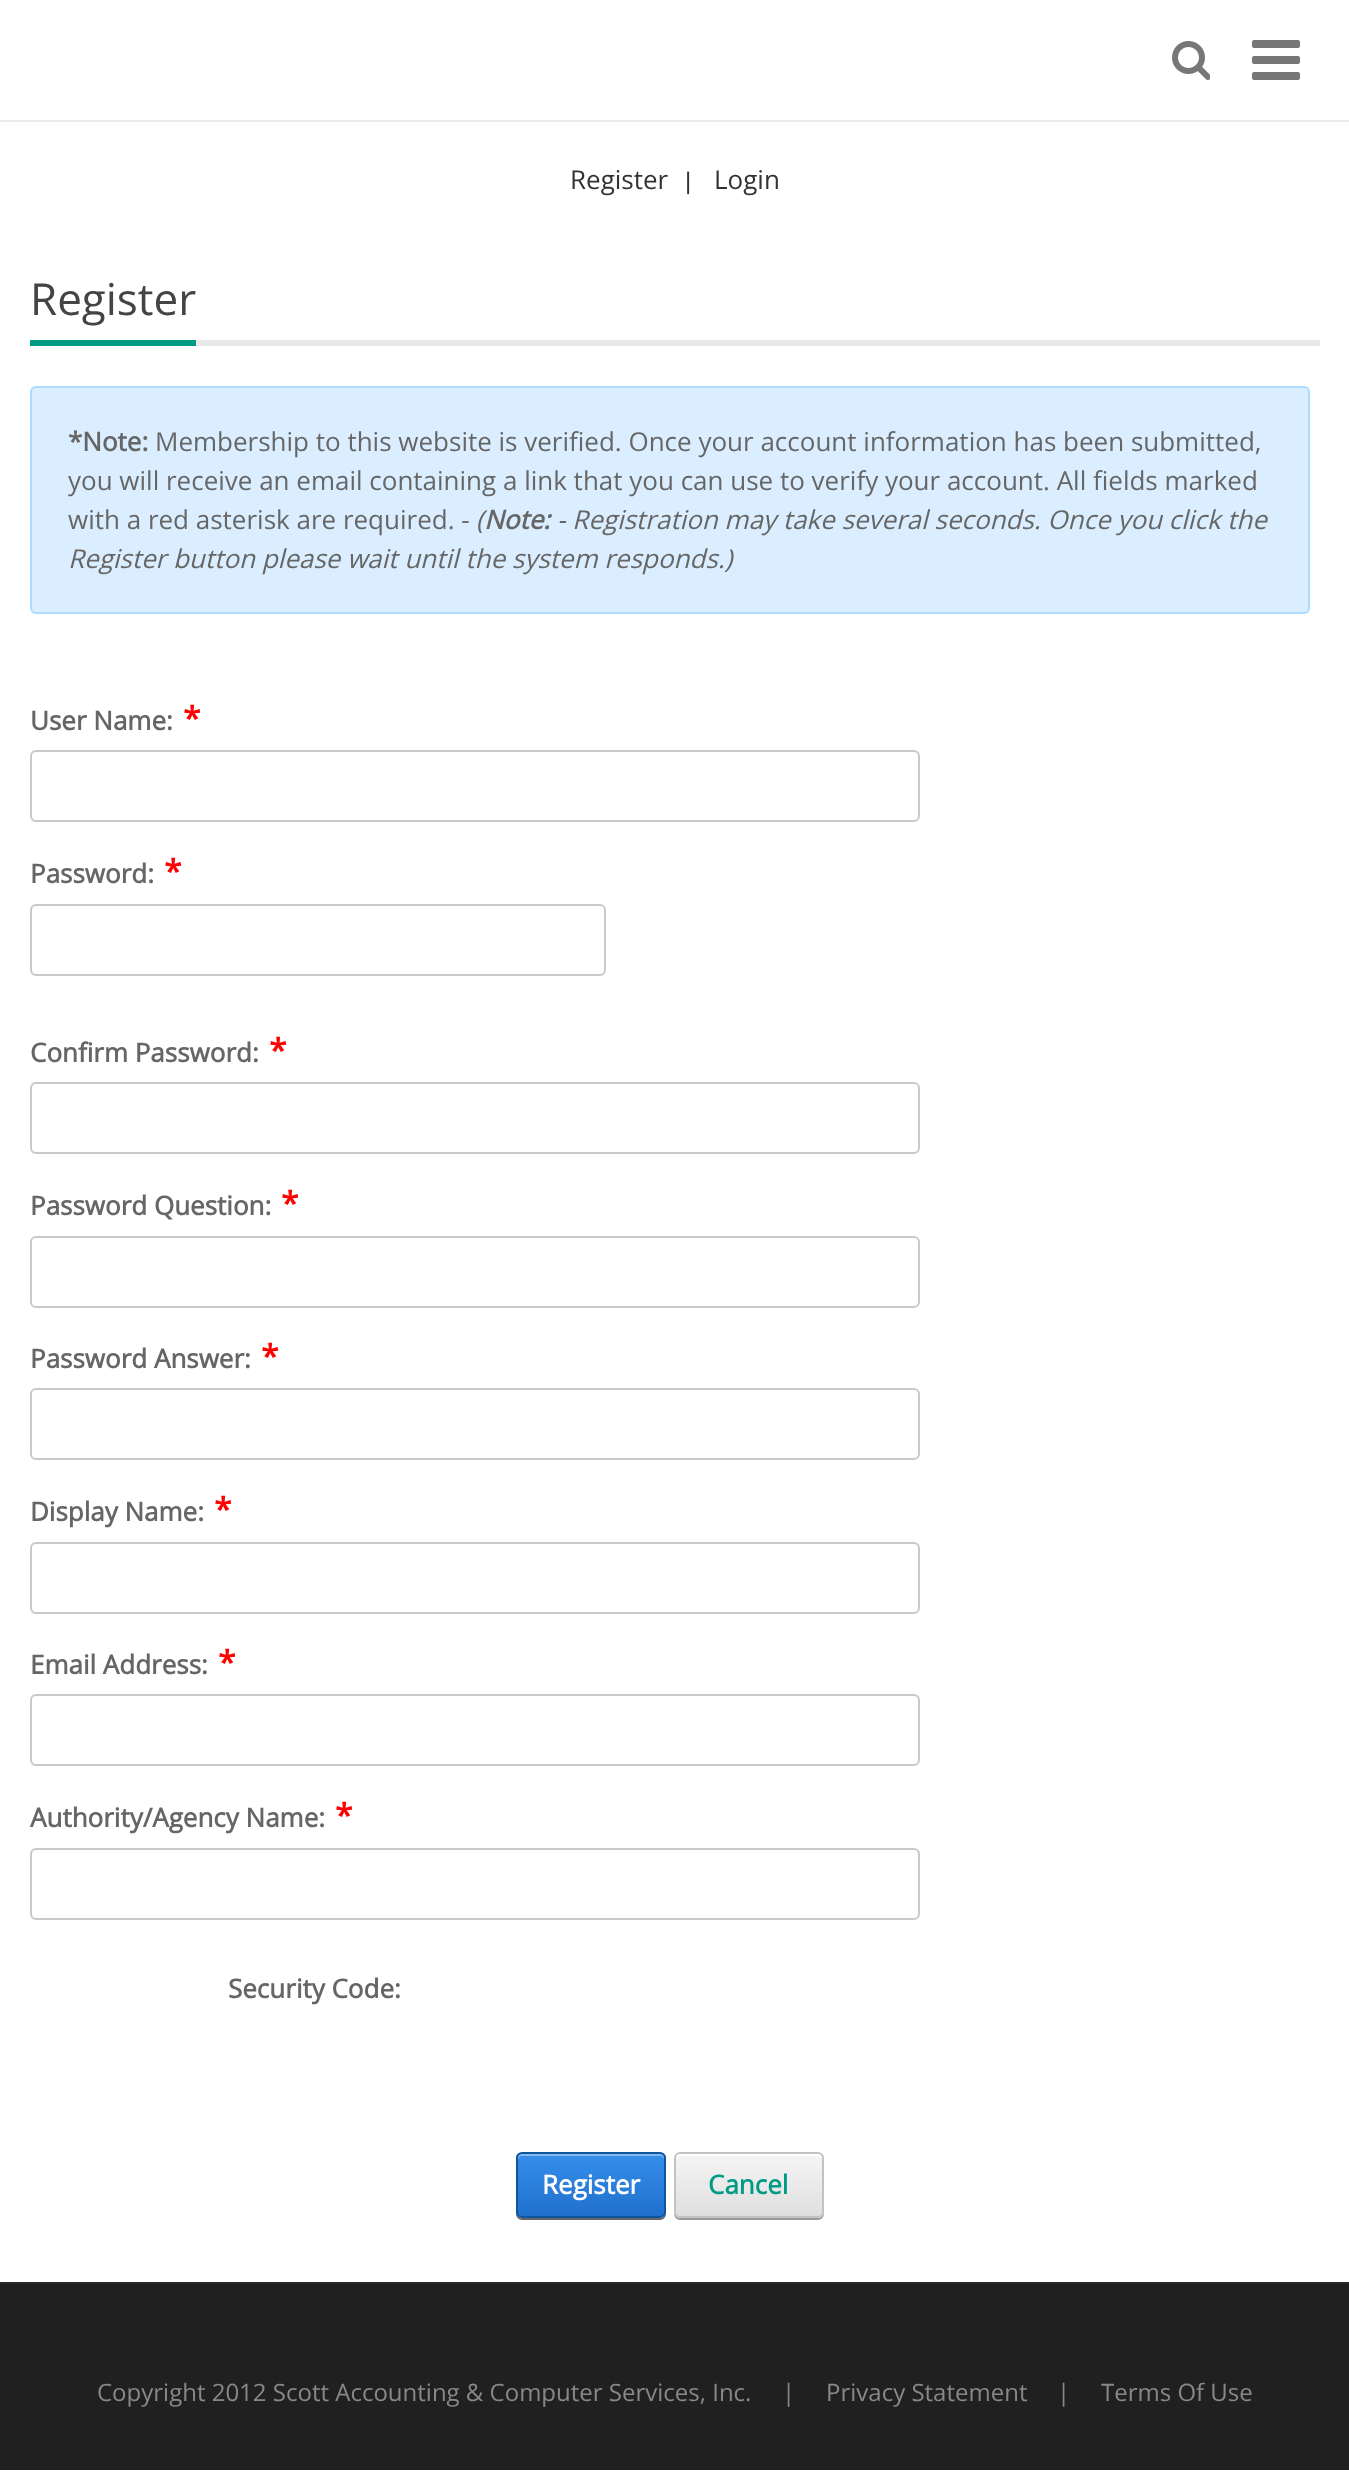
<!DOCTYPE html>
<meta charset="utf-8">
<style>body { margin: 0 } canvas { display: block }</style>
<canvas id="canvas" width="1349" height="2477"></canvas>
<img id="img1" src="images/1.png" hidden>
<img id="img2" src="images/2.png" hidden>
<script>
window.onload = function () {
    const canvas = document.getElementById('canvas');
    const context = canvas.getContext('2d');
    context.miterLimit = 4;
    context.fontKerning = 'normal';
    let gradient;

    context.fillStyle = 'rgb(255, 255, 255)';
    context.fillRect(0, 0, 1349, 2477);
    context.fillStyle = 'rgb(234, 234, 234)';
    context.fillRect(0, 120, 1349, 2);
    context.drawImage(document.getElementById('img1'), 1172, 41, 38, 39);
    context.drawImage(document.getElementById('img2'), 1252, 40, 48, 40);
    context.fillStyle = 'rgb(232, 232, 232)';
    context.fillRect(196, 340, 1124, 6);
    context.fillStyle = 'rgb(0, 155, 133)';
    context.fillRect(30, 340, 166, 6);
    context.fillStyle = 'rgb(218, 238, 255)';
    context.beginPath();
    context.roundRect(30, 386, 1280, 228, 6);
    context.fill();
    context.beginPath();
    context.roundRect(31, 387, 1278, 226, 5);
    context.strokeStyle = 'rgba(2, 139, 255, 0.2)';
    context.lineWidth = 2;
    context.stroke();
    context.beginPath();
    context.roundRect(31, 751, 888, 70, 5);
    context.strokeStyle = 'rgb(201, 201, 201)';
    context.stroke();
    context.beginPath();
    context.roundRect(31, 905, 574, 70, 5);
    context.stroke();
    context.beginPath();
    context.roundRect(31, 1083, 888, 70, 5);
    context.stroke();
    context.beginPath();
    context.roundRect(31, 1237, 888, 70, 5);
    context.stroke();
    context.beginPath();
    context.roundRect(31, 1389, 888, 70, 5);
    context.stroke();
    context.beginPath();
    context.roundRect(31, 1543, 888, 70, 5);
    context.stroke();
    context.beginPath();
    context.roundRect(31, 1695, 888, 70, 5);
    context.stroke();
    context.beginPath();
    context.roundRect(31, 1849, 888, 70, 5);
    context.stroke();
    context.fillStyle = 'rgb(102, 102, 102)';
    context.beginPath();
    context.moveTo(516, 2212);
    context.lineTo(516, 2214);
    context.bezierCurveTo(516, 2217, 519, 2220, 522, 2220);
    context.lineTo(660, 2220);
    context.bezierCurveTo(663, 2220, 666, 2217, 666, 2214);
    context.lineTo(666, 2212);
    context.bezierCurveTo(666, 2215, 663, 2218, 660, 2218);
    context.lineTo(522, 2218);
    context.bezierCurveTo(519, 2218, 516, 2215, 516, 2212);
    context.closePath();
    context.fill();
    context.save();
    context.beginPath();
    context.roundRect(516, 2152, 150, 66, 6);
    context.clip();
    gradient = context.createLinearGradient(591, 2154, 591, 2216);
    gradient.addColorStop(0, 'rgb(53, 142, 234)');
    gradient.addColorStop(1, 'rgb(33, 112, 205)');
    context.fillStyle = gradient;
    context.fillRect(516, 2154, 150, 62);
    context.restore();
    context.fillStyle = 'rgb(134, 187, 242)';
    context.beginPath();
    context.moveTo(522, 2156);
    context.lineTo(660, 2156);
    context.bezierCurveTo(662, 2156, 664, 2158, 664, 2160);
    context.lineTo(664, 2158);
    context.bezierCurveTo(664, 2156, 662, 2154, 660, 2154);
    context.lineTo(522, 2154);
    context.bezierCurveTo(520, 2154, 518, 2156, 518, 2158);
    context.lineTo(518, 2160);
    context.bezierCurveTo(518, 2158, 520, 2156, 522, 2156);
    context.closePath();
    context.fill();
    context.beginPath();
    context.roundRect(517, 2153, 148, 64, 5);
    context.strokeStyle = 'rgb(13, 86, 158)';
    context.stroke();
    context.fillStyle = 'rgb(153, 153, 153)';
    context.beginPath();
    context.moveTo(674, 2212);
    context.lineTo(674, 2214);
    context.bezierCurveTo(674, 2217, 677, 2220, 680, 2220);
    context.lineTo(818, 2220);
    context.bezierCurveTo(821, 2220, 824, 2217, 824, 2214);
    context.lineTo(824, 2212);
    context.bezierCurveTo(824, 2215, 821, 2218, 818, 2218);
    context.lineTo(680, 2218);
    context.bezierCurveTo(677, 2218, 674, 2215, 674, 2212);
    context.closePath();
    context.fill();
    context.save();
    context.beginPath();
    context.roundRect(674, 2152, 150, 66, 6);
    context.clip();
    gradient = context.createLinearGradient(749, 2154, 749, 2216);
    gradient.addColorStop(0, 'rgb(245, 245, 245)');
    gradient.addColorStop(1, 'rgb(223, 223, 223)');
    context.fillStyle = gradient;
    context.fillRect(674, 2154, 150, 62);
    context.restore();
    context.fillStyle = 'rgb(255, 255, 255)';
    context.beginPath();
    context.moveTo(680, 2156);
    context.lineTo(818, 2156);
    context.bezierCurveTo(820, 2156, 822, 2158, 822, 2160);
    context.lineTo(822, 2158);
    context.bezierCurveTo(822, 2156, 820, 2154, 818, 2154);
    context.lineTo(680, 2154);
    context.bezierCurveTo(678, 2154, 676, 2156, 676, 2158);
    context.lineTo(676, 2160);
    context.bezierCurveTo(676, 2158, 678, 2156, 680, 2156);
    context.closePath();
    context.fill();
    context.beginPath();
    context.roundRect(675, 2153, 148, 64, 5);
    context.strokeStyle = 'rgb(194, 194, 194)';
    context.stroke();
    context.fillStyle = 'rgb(40, 40, 40)';
    context.fillRect(0, 2282, 1349, 2);
    context.fillStyle = 'rgb(32, 32, 32)';
    context.fillRect(0, 2284, 1349, 186);
    context.font = '26px Open Sans';
    context.fillStyle = 'rgb(51, 51, 51)';
    context.fillText('Register', 570, 189);
    context.font = '24px Liberation Sans';
    context.fillText('|', 685, 189);
    context.font = '26px Open Sans';
    context.fillText('Login', 714, 189);
    context.font = '44px Open Sans';
    context.fillStyle = 'rgb(68, 68, 68)';
    context.fillText('Register', 30, 315);
    context.font = 'bold 26px Open Sans';
    context.fillStyle = 'rgb(102, 102, 102)';
    context.fillText('*Note:', 68, 451);
    context.font = '26px Open Sans';
    context.fillText('Membership to this website is verified. Once your account information has been submitted,', 155, 451);
    context.fillText('you will receive an email containing a link that you can use to verify your account. All fields marked', 68, 490);
    context.fillText('with a red asterisk are required. -', 68, 529);
    context.font = 'italic 26px Open Sans';
    context.fillText('(', 476, 529);
    context.font = 'italic bold 26px Open Sans';
    context.fillText('Note:', 484, 529);
    context.font = 'italic 26px Open Sans';
    context.fillText('- Registration may take several seconds. Once you click the', 557, 529);
    context.fillText('Register button please wait until the system responds.)', 68, 568);
    context.font = 'bold 26px Open Sans';
    context.fillText('User Name:', 30, 730);
    context.font = 'bold 32px Open Sans';
    context.fillStyle = 'rgb(255, 0, 0)';
    context.fillText('*', 183, 730);
    context.font = 'bold 26px Open Sans';
    context.fillStyle = 'rgb(102, 102, 102)';
    context.fillText('Password:', 30, 883);
    context.font = 'bold 32px Open Sans';
    context.fillStyle = 'rgb(255, 0, 0)';
    context.fillText('*', 164, 883);
    context.font = 'bold 26px Open Sans';
    context.fillStyle = 'rgb(102, 102, 102)';
    context.fillText('Confirm Password:', 30, 1062);
    context.font = 'bold 32px Open Sans';
    context.fillStyle = 'rgb(255, 0, 0)';
    context.fillText('*', 269, 1062);
    context.font = 'bold 26px Open Sans';
    context.fillStyle = 'rgb(102, 102, 102)';
    context.fillText('Password Question:', 30, 1215);
    context.font = 'bold 32px Open Sans';
    context.fillStyle = 'rgb(255, 0, 0)';
    context.fillText('*', 281, 1215);
    context.font = 'bold 26px Open Sans';
    context.fillStyle = 'rgb(102, 102, 102)';
    context.fillText('Password Answer:', 30, 1368);
    context.font = 'bold 32px Open Sans';
    context.fillStyle = 'rgb(255, 0, 0)';
    context.fillText('*', 261, 1368);
    context.font = 'bold 26px Open Sans';
    context.fillStyle = 'rgb(102, 102, 102)';
    context.fillText('Display Name:', 30, 1521);
    context.font = 'bold 32px Open Sans';
    context.fillStyle = 'rgb(255, 0, 0)';
    context.fillText('*', 214, 1521);
    context.font = 'bold 26px Open Sans';
    context.fillStyle = 'rgb(102, 102, 102)';
    context.fillText('Email Address:', 30, 1674);
    context.font = 'bold 32px Open Sans';
    context.fillStyle = 'rgb(255, 0, 0)';
    context.fillText('*', 218, 1674);
    context.font = 'bold 26px Open Sans';
    context.fillStyle = 'rgb(102, 102, 102)';
    context.fillText('Authority/Agency Name:', 30, 1827);
    context.font = 'bold 32px Open Sans';
    context.fillStyle = 'rgb(255, 0, 0)';
    context.fillText('*', 335, 1827);
    context.font = 'bold 26px Open Sans';
    context.fillStyle = 'rgb(102, 102, 102)';
    context.fillText('Security Code:', 228, 1998);
    context.fillStyle = 'rgb(255, 255, 255)';
    context.fillText('Register', 542, 2194);
    context.fillStyle = 'rgb(0, 155, 133)';
    context.fillText('Cancel', 708, 2194);
    context.font = '24px Open Sans';
    context.fillStyle = 'rgb(136, 136, 136)';
    context.fillText('Copyright 2012 Scott Accounting & Computer Services, Inc.', 97, 2401);
    context.fillText('|', 782, 2401);
    context.fillText('Privacy Statement', 826, 2401);
    context.fillText('|', 1057, 2401);
    context.fillText('Terms Of Use', 1101, 2401);
};
</script>
